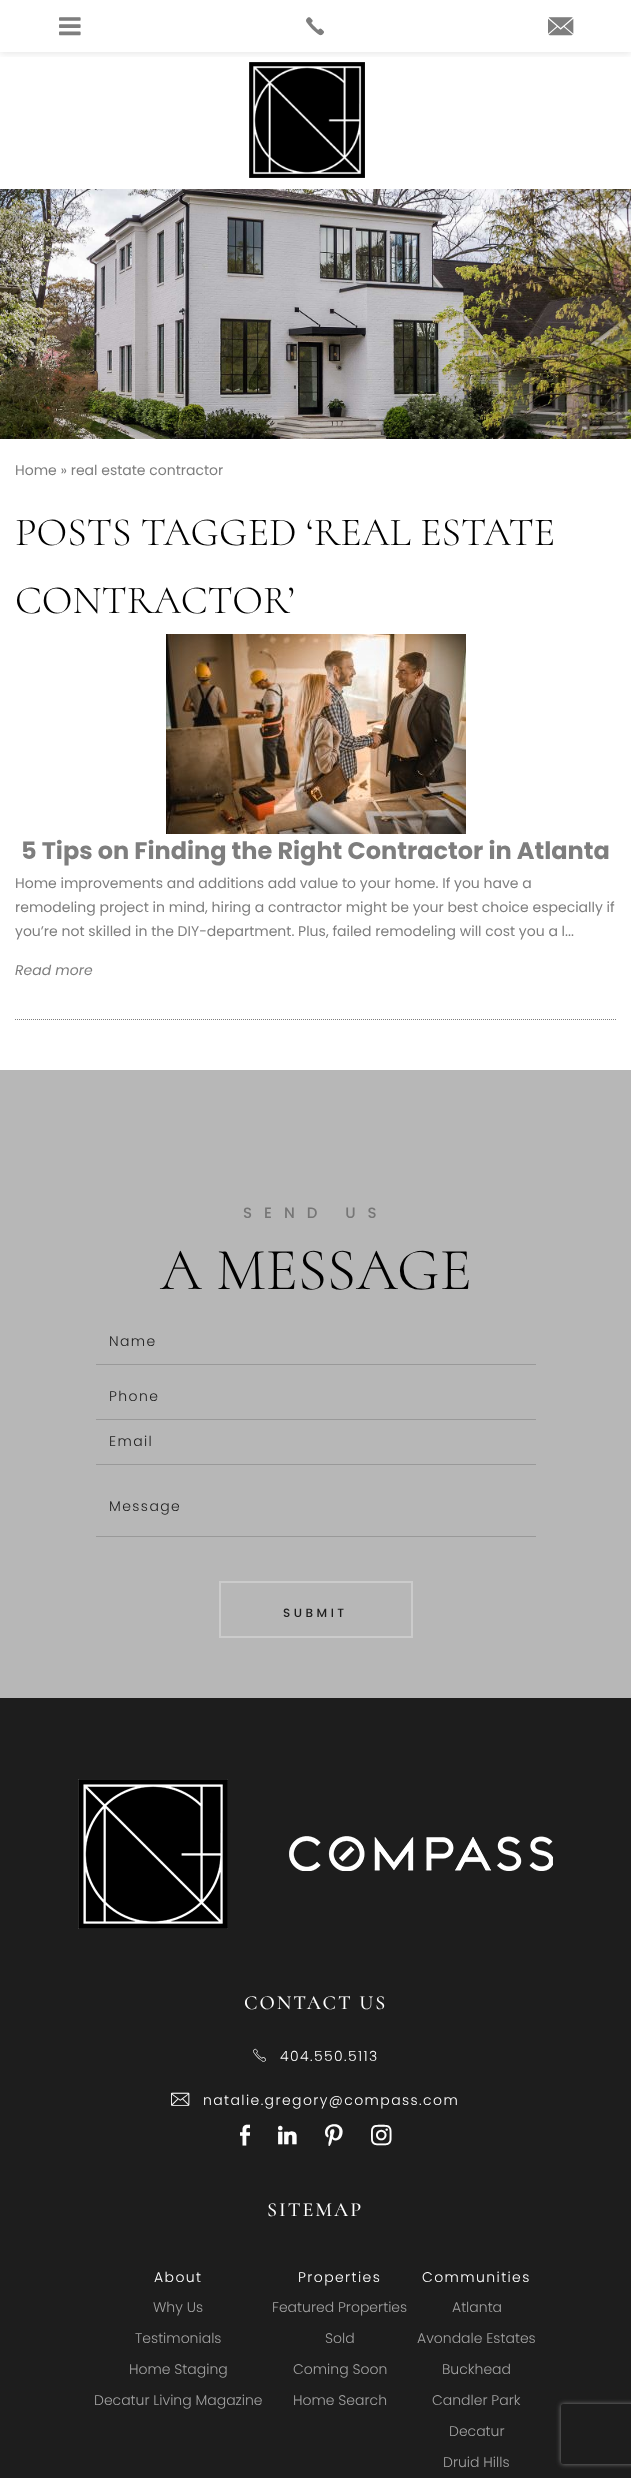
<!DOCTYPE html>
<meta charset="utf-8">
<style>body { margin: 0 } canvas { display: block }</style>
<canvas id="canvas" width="631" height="2478"></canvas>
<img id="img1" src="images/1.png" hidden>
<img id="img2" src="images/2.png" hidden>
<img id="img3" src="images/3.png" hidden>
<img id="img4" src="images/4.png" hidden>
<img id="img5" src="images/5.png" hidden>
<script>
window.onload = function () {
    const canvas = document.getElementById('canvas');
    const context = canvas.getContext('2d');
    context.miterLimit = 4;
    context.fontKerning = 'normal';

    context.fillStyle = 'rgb(255, 255, 255)';
    context.fillRect(0, 0, 631, 2478);
    context.drawImage(document.getElementById('img1'), 249, 62, 116, 116);
    context.save();
    context.beginPath();
    context.rect(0, 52, 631, 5);
    context.clip();
    context.fillStyle = 'rgba(0, 1, 1, 0.09)';
    context.filter = 'blur(3.5px)';
    context.beginPath();
    context.rect(0, 2, 631, 52);
    context.fill();
    context.filter = 'none';
    context.restore();
    context.drawImage(document.getElementById('img2'), 0, 189, 631, 250);
    context.beginPath();
    context.moveTo(15, 1019.5);
    context.lineTo(616, 1019.5);
    context.strokeStyle = 'rgb(126, 126, 126)';
    context.setLineDash([1, 1]);
    context.stroke();
    context.drawImage(document.getElementById('img3'), 166, 634, 300, 200);
    context.fillStyle = 'rgb(183, 183, 183)';
    context.fillRect(0, 1070, 631, 628);
    context.fillStyle = 'rgb(153, 153, 153)';
    context.fillRect(96, 1364, 440, 1);
    context.fillRect(96, 1419, 440, 1);
    context.fillRect(96, 1464, 440, 1);
    context.fillRect(96, 1536, 440, 1);
    context.strokeStyle = 'rgb(203, 203, 203)';
    context.lineWidth = 2;
    context.setLineDash([]);
    context.strokeRect(220, 1582, 192, 55);
    context.fillStyle = 'rgb(29, 29, 29)';
    context.fillRect(0, 1698, 631, 780);
    context.fillStyle = 'rgb(255, 255, 255)';
    context.fillRect(78, 1779, 150, 150);
    context.drawImage(document.getElementById('img4'), 78, 1779, 150, 150);
    context.drawImage(document.getElementById('img5'), 289, 1836, 264, 35);
    context.save();
    context.beginPath();
    context.moveTo(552, 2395);
    context.lineTo(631, 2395);
    context.lineTo(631, 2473);
    context.lineTo(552, 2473);
    context.closePath();
    context.moveTo(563, 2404);
    context.lineTo(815, 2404);
    context.bezierCurveTo(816, 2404, 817, 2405, 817, 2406);
    context.lineTo(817, 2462);
    context.bezierCurveTo(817, 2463, 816, 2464, 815, 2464);
    context.lineTo(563, 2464);
    context.bezierCurveTo(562, 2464, 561, 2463, 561, 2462);
    context.lineTo(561, 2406);
    context.bezierCurveTo(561, 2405, 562, 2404, 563, 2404);
    context.closePath();
    context.clip('evenodd');
    context.fillStyle = 'rgb(128, 128, 128)';
    context.filter = 'blur(2.5px)';
    context.beginPath();
    context.roundRect(561, 2404, 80, 60, 2);
    context.fill();
    context.filter = 'none';
    context.restore();
    context.font = '18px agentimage';
    context.fillStyle = 'rgb(126, 126, 126)';
    context.fillText('򰁰', 59, 34);
    context.fillText('򰁩', 306, 34);
    context.fillText('򰄢', 548, 34);
    context.font = '14px Poppins';
    context.fillText('Home » real estate contractor', 15, 475);
    context.font = '300 40px Cormorant';
    context.fillStyle = 'rgb(0, 0, 0)';
    context.fillText('POSTS TAGGED ‘REAL ESTATE', 15, 545);
    context.fillText('CONTRACTOR’', 15, 613);
    context.font = 'bold 24px Poppins';
    context.fillStyle = 'rgb(126, 126, 126)';
    context.fillText('5 Tips on Finding the Right Contractor in Atlanta', 21, 859);
    context.font = '14px Poppins';
    context.fillText('Home improvements and additions add value to your home. If you have a', 15, 888);
    context.fillText('remodeling project in mind, hiring a contractor might be your best choice especially if', 15, 912);
    context.fillText('you’re not skilled in the DIY-department. Plus, failed remodeling will cost you a l...', 15, 936);
    context.font = 'italic 14px Poppins';
    context.fillText('Read more', 15, 975);
    context.letterSpacing = '12px';
    context.font = '500 15px Poppins';
    context.fillStyle = 'rgb(118, 118, 118)';
    context.fillText('SEND US', 243, 1218);
    context.letterSpacing = '0px';
    context.font = '300 60px Cormorant';
    context.fillStyle = 'rgb(0, 0, 0)';
    context.fillText('A MESSAGE', 160, 1289);
    context.letterSpacing = '1.4px';
    context.font = '300 14px Poppins';
    context.fillStyle = 'rgb(29, 29, 29)';
    context.fillText('Name', 109, 1346);
    context.fillText('Phone', 109, 1401);
    context.fillText('Email', 109, 1446);
    context.fillText('Message', 109, 1511);
    context.letterSpacing = '3.5px';
    context.font = '500 12px Poppins';
    context.fillText('SUBMIT', 283, 1617);
    context.letterSpacing = '2px';
    context.font = '500 20px Cormorant';
    context.fillStyle = 'rgb(255, 255, 255)';
    context.fillText('CONTACT US', 244, 2009);
    context.letterSpacing = '0px';
    context.font = '13px agentimage';
    context.fillText('򰁨', 253, 2061);
    context.letterSpacing = '1.4px';
    context.font = '300 14px Poppins';
    context.fillText('404.550.5113', 280, 2061);
    context.letterSpacing = '0px';
    context.font = '13px agentimage';
    context.fillText('򰄠', 171, 2105);
    context.letterSpacing = '1.4px';
    context.font = '300 14px Poppins';
    context.fillText('natalie.gregory@compass.com', 203, 2105);
    context.letterSpacing = '0px';
    context.font = '25px agentimage';
    context.fillText('򰄔', 240, 2146);
    context.fillText('򰄅', 278, 2146);
    context.fillText('򰄄', 325, 2146);
    context.fillText('򰄆', 371, 2146);
    context.letterSpacing = '2px';
    context.font = '500 20px Cormorant';
    context.fillText('SITEMAP', 267, 2216);
    context.letterSpacing = '1.4px';
    context.font = '300 14px Poppins';
    context.fillText('About', 154, 2282);
    context.letterSpacing = '0px';
    context.fillStyle = 'rgb(161, 161, 161)';
    context.fillText('Why Us', 153, 2312);
    context.fillText('Testimonials', 135, 2343);
    context.fillText('Home Staging', 129, 2374);
    context.fillText('Decatur Living Magazine', 94, 2405);
    context.letterSpacing = '1.4px';
    context.fillStyle = 'rgb(255, 255, 255)';
    context.fillText('Properties', 298, 2282);
    context.letterSpacing = '0px';
    context.fillStyle = 'rgb(161, 161, 161)';
    context.fillText('Featured Properties', 272, 2312);
    context.fillText('Sold', 325, 2343);
    context.fillText('Coming Soon', 293, 2374);
    context.fillText('Home Search', 293, 2405);
    context.letterSpacing = '1.4px';
    context.fillStyle = 'rgb(255, 255, 255)';
    context.fillText('Communities', 422, 2282);
    context.letterSpacing = '0px';
    context.fillStyle = 'rgb(161, 161, 161)';
    context.fillText('Atlanta', 452, 2312);
    context.fillText('Avondale Estates', 417, 2343);
    context.fillText('Buckhead', 442, 2374);
    context.fillText('Candler Park', 432, 2405);
    context.fillText('Decatur', 449, 2436);
    context.fillText('Druid Hills', 443, 2467);
};
</script>
